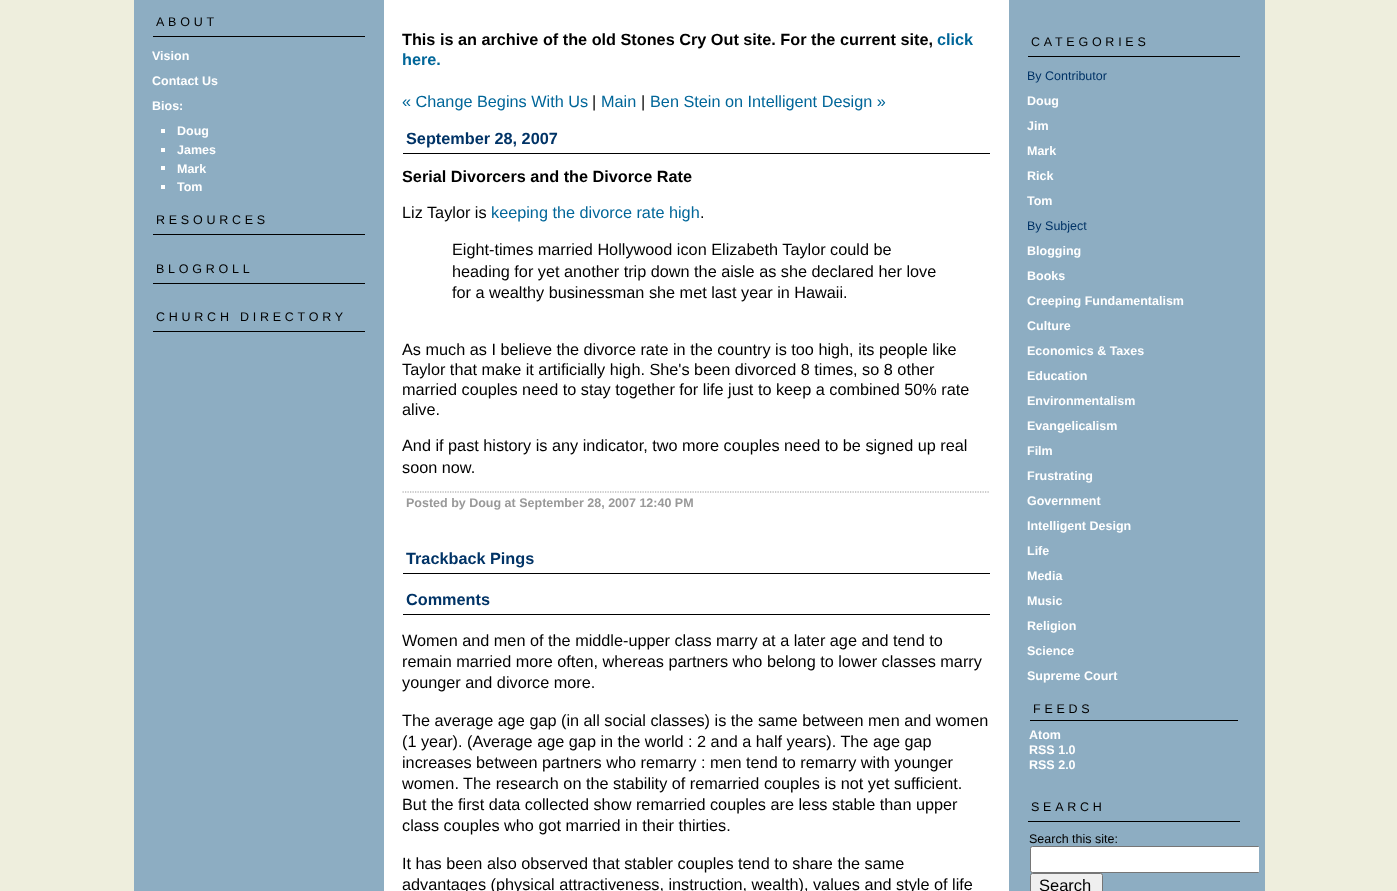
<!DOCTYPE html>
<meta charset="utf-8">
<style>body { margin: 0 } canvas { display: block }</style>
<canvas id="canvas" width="1397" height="891"></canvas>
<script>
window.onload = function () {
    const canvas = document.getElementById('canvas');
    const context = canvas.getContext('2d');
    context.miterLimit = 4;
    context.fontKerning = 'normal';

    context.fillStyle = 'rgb(238, 238, 221)';
    context.fillRect(0, 0, 1397, 891);
    context.fillStyle = 'rgb(141, 173, 194)';
    context.fillRect(134, 0, 1131, 891);
    context.fillStyle = 'rgb(0, 0, 0)';
    context.fillRect(153, 36, 212, 1);
    context.fillStyle = 'rgb(255, 255, 255)';
    context.fillRect(161, 129, 4, 4);
    context.fillRect(161, 148, 4, 4);
    context.fillRect(161, 166, 4, 4);
    context.fillRect(161, 185, 4, 4);
    context.fillStyle = 'rgb(0, 0, 0)';
    context.fillRect(153, 234, 212, 1);
    context.fillRect(153, 283, 212, 1);
    context.fillRect(153, 331, 212, 1);
    context.fillStyle = 'rgb(255, 255, 255)';
    context.fillRect(384, 0, 625, 891);
    context.fillStyle = 'rgb(0, 0, 0)';
    context.fillRect(403, 153, 587, 1);
    context.beginPath();
    context.moveTo(402.5, 492);
    context.lineTo(990, 492);
    context.strokeStyle = 'rgb(153, 153, 153)';
    context.lineWidth = 1.2;
    context.setLineDash([1.25, 1.25]);
    context.stroke();
    context.fillRect(403, 573, 587, 1);
    context.fillRect(403, 614, 587, 1);
    context.fillRect(1028, 56, 212, 1);
    context.fillRect(1030, 720, 208, 1);
    context.fillRect(1028, 821, 212, 1);
    context.save();
    context.beginPath();
    context.rect(1009, 0, 250, 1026);
    context.clip();
    context.fillStyle = 'rgb(255, 255, 255)';
    context.beginPath();
    context.roundRect(1030.5, 846.5, 230, 26, 2);
    context.fill();
    context.strokeStyle = 'rgb(118, 118, 118)';
    context.lineWidth = 1;
    context.setLineDash([]);
    context.stroke();
    context.restore();
    context.fillStyle = 'rgb(239, 239, 239)';
    context.beginPath();
    context.roundRect(1030.5, 873.5, 72, 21, 2);
    context.fill();
    context.strokeStyle = 'rgb(118, 118, 118)';
    context.lineWidth = 1;
    context.setLineDash([]);
    context.stroke();
    context.letterSpacing = '3.75px';
    context.font = '12.5px Liberation Sans';
    context.fillStyle = 'rgb(0, 0, 0)';
    context.fillText('ABOUT', 156, 26);
    context.letterSpacing = '0px';
    context.font = 'bold 12.5px Liberation Sans';
    context.fillStyle = 'rgb(255, 255, 255)';
    context.fillText('Vision', 152, 60);
    context.fillText('Contact Us', 152, 85);
    context.fillText('Bios:', 152, 110);
    context.fillText('Doug', 177, 135);
    context.fillText('James', 177, 154);
    context.fillText('Mark', 177, 173);
    context.fillText('Tom', 177, 191);
    context.letterSpacing = '3.75px';
    context.font = '12.5px Liberation Sans';
    context.fillStyle = 'rgb(0, 0, 0)';
    context.fillText('RESOURCES', 156, 224);
    context.fillText('BLOGROLL', 156, 273);
    context.fillText('CHURCH DIRECTORY', 156, 321);
    context.letterSpacing = '0px';
    context.font = 'bold 16.25px Liberation Sans';
    context.fillText('This is an archive of the old Stones Cry Out site. For the current site,', 402, 45);
    context.fillStyle = 'rgb(0, 102, 153)';
    context.fillText('click', 937, 45);
    context.fillText('here.', 402, 65);
    context.font = '16.25px Liberation Sans';
    context.fillText('« Change Begins With Us', 402, 107);
    context.fillStyle = 'rgb(0, 0, 0)';
    context.fillText('|', 592, 107);
    context.fillStyle = 'rgb(0, 102, 153)';
    context.fillText('Main', 601, 107);
    context.fillStyle = 'rgb(0, 0, 0)';
    context.fillText('|', 641, 107);
    context.fillStyle = 'rgb(0, 102, 153)';
    context.fillText('Ben Stein on Intelligent Design »', 650, 107);
    context.font = 'bold 16.25px Liberation Sans';
    context.fillStyle = 'rgb(0, 51, 102)';
    context.fillText('September 28, 2007', 406, 144);
    context.fillStyle = 'rgb(0, 0, 0)';
    context.fillText('Serial Divorcers and the Divorce Rate', 402, 182);
    context.font = '16.25px Liberation Sans';
    context.fillText('Liz Taylor is', 402, 218);
    context.fillStyle = 'rgb(0, 102, 153)';
    context.fillText('keeping the divorce rate high', 491, 218);
    context.fillStyle = 'rgb(0, 0, 0)';
    context.fillText('.', 700, 218);
    context.fillText('Eight-times married Hollywood icon Elizabeth Taylor could be', 452, 255);
    context.fillText('heading for yet another trip down the aisle as she declared her love', 452, 277);
    context.fillText('for a wealthy businessman she met last year in Hawaii.', 452, 298);
    context.fillText('As much as I believe the divorce rate in the country is too high, its people like', 402, 355);
    context.fillText('Taylor that make it artificially high. She\'s been divorced 8 times, so 8 other', 402, 375);
    context.fillText('married couples need to stay together for life just to keep a combined 50% rate', 402, 395);
    context.fillText('alive.', 402, 415);
    context.fillText('And if past history is any indicator, two more couples need to be signed up real', 402, 451);
    context.fillText('soon now.', 402, 473);
    context.font = 'bold 12.5px Liberation Sans';
    context.fillStyle = 'rgb(153, 153, 153)';
    context.fillText('Posted by Doug at September 28, 2007 12:40 PM', 406, 507);
    context.font = 'bold 16.25px Liberation Sans';
    context.fillStyle = 'rgb(0, 51, 102)';
    context.fillText('Trackback Pings', 406, 564);
    context.fillText('Comments', 406, 605);
    context.font = '16.25px Liberation Sans';
    context.fillStyle = 'rgb(0, 0, 0)';
    context.fillText('Women and men of the middle-upper class marry at a later age and tend to', 402, 646);
    context.fillText('remain married more often, whereas partners who belong to lower classes marry', 402, 667);
    context.fillText('younger and divorce more.', 402, 688);
    context.fillText('The average age gap (in all social classes) is the same between men and women', 402, 726);
    context.fillText('(1 year). (Average age gap in the world : 2 and a half years). The age gap', 402, 747);
    context.fillText('increases between partners who remarry : men tend to remarry with younger', 402, 768);
    context.fillText('women. The research on the stability of remarried couples is not yet sufficient.', 402, 789);
    context.fillText('But the first data collected show remarried couples are less stable than upper', 402, 810);
    context.fillText('class couples who got married in their thirties.', 402, 831);
    context.fillText('It has been also observed that stabler couples tend to share the same', 402, 869);
    context.fillText('advantages (physical attractiveness, instruction, wealth), values and style of life', 402, 890);
    context.letterSpacing = '3.75px';
    context.font = '12.5px Liberation Sans';
    context.fillText('CATEGORIES', 1031, 46);
    context.letterSpacing = '0px';
    context.fillStyle = 'rgb(0, 51, 102)';
    context.fillText('By Contributor', 1027, 80);
    context.font = 'bold 12.5px Liberation Sans';
    context.fillStyle = 'rgb(255, 255, 255)';
    context.fillText('Doug', 1027, 105);
    context.fillText('Jim', 1027, 130);
    context.fillText('Mark', 1027, 155);
    context.fillText('Rick', 1027, 180);
    context.fillText('Tom', 1027, 205);
    context.font = '12.5px Liberation Sans';
    context.fillStyle = 'rgb(0, 51, 102)';
    context.fillText('By Subject', 1027, 230);
    context.font = 'bold 12.5px Liberation Sans';
    context.fillStyle = 'rgb(255, 255, 255)';
    context.fillText('Blogging', 1027, 255);
    context.fillText('Books', 1027, 280);
    context.fillText('Creeping Fundamentalism', 1027, 305);
    context.fillText('Culture', 1027, 330);
    context.fillText('Economics & Taxes', 1027, 355);
    context.fillText('Education', 1027, 380);
    context.fillText('Environmentalism', 1027, 405);
    context.fillText('Evangelicalism', 1027, 430);
    context.fillText('Film', 1027, 455);
    context.fillText('Frustrating', 1027, 480);
    context.fillText('Government', 1027, 505);
    context.fillText('Intelligent Design', 1027, 530);
    context.fillText('Life', 1027, 555);
    context.fillText('Media', 1027, 580);
    context.fillText('Music', 1027, 605);
    context.fillText('Religion', 1027, 630);
    context.fillText('Science', 1027, 655);
    context.fillText('Supreme Court', 1027, 680);
    context.letterSpacing = '3.75px';
    context.font = '12.5px Liberation Sans';
    context.fillStyle = 'rgb(0, 0, 0)';
    context.fillText('FEEDS', 1033, 713);
    context.letterSpacing = '0px';
    context.font = 'bold 12.5px Liberation Sans';
    context.fillStyle = 'rgb(255, 255, 255)';
    context.fillText('Atom', 1029, 739);
    context.fillText('RSS 1.0', 1029, 754);
    context.fillText('RSS 2.0', 1029, 769);
    context.letterSpacing = '3.75px';
    context.font = '12.5px Liberation Sans';
    context.fillStyle = 'rgb(0, 0, 0)';
    context.fillText('SEARCH', 1031, 811);
    context.letterSpacing = '0px';
    context.fillText('Search this site:', 1029, 843);
    context.font = '16.5px Liberation Sans';
    context.fillText('Search', 1039, 891);
};
</script>
